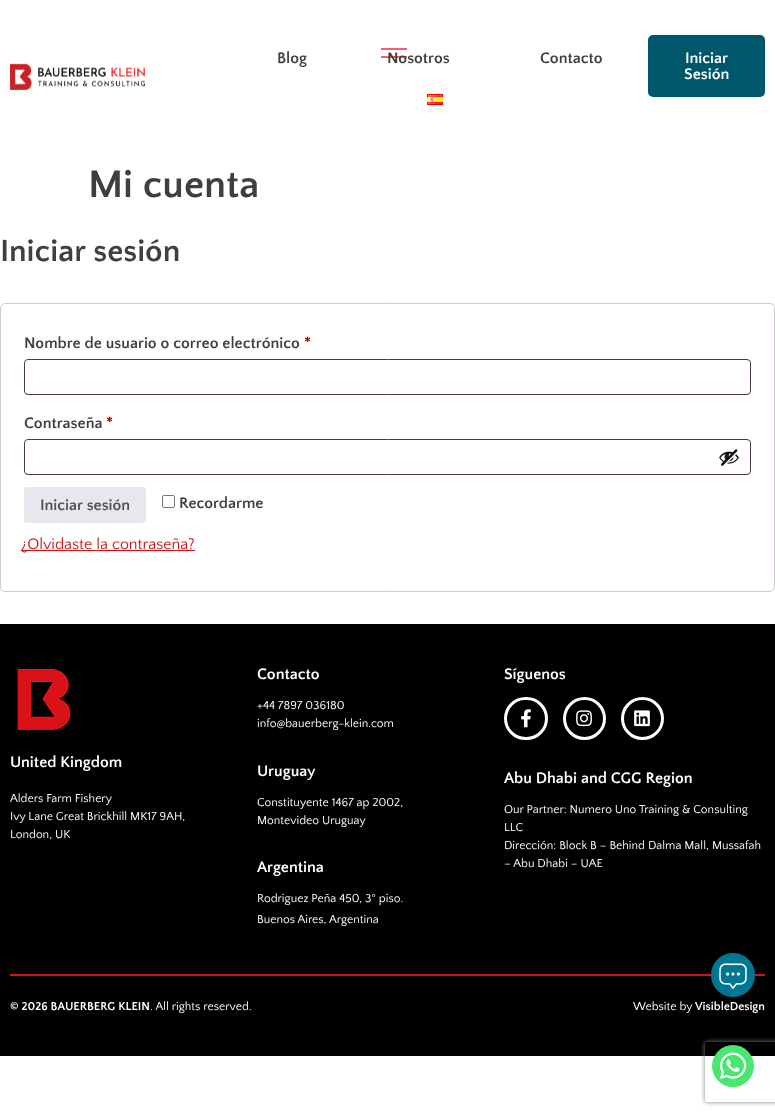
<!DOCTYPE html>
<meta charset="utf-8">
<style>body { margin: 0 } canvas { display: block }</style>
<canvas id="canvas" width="775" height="1116"></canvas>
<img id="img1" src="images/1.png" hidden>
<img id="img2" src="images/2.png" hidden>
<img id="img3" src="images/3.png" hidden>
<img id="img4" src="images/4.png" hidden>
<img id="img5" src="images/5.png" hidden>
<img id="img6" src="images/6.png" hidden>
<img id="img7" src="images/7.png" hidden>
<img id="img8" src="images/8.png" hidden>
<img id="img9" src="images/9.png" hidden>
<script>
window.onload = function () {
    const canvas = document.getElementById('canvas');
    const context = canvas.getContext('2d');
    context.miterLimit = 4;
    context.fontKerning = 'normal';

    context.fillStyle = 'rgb(255, 255, 255)';
    context.fillRect(0, 0, 775, 1116);
    context.drawImage(document.getElementById('img1'), 10, 63, 135, 27);
    context.fillStyle = 'rgb(255, 90, 110)';
    context.fillRect(381, 48, 26, 2);
    context.fillRect(381, 56, 26, 2);
    context.drawImage(document.getElementById('img2'), 427, 94, 16, 11);
    context.fillStyle = 'rgb(0, 87, 107)';
    context.beginPath();
    context.roundRect(648, 35, 117, 62, 5);
    context.fill();
    context.beginPath();
    context.roundRect(0.5, 303.5, 774, 288, 4.5);
    context.strokeStyle = 'rgb(207, 200, 216)';
    context.stroke();
    context.beginPath();
    context.roundRect(24.5, 359.5, 726, 35, 3.5);
    context.strokeStyle = 'rgb(77, 57, 57)';
    context.stroke();
    context.beginPath();
    context.roundRect(24.5, 439.5, 726, 35, 3.5);
    context.stroke();
    context.drawImage(document.getElementById('img3'), 719, 449, 20, 17);
    context.fillStyle = 'rgb(233, 230, 237)';
    context.beginPath();
    context.roundRect(24, 487, 122, 36, 3);
    context.fill();
    context.beginPath();
    context.roundRect(162.5, 495.5, 12, 12, 1.5);
    context.strokeStyle = 'rgb(118, 118, 118)';
    context.stroke();
    context.fillStyle = 'rgb(203, 22, 26)';
    context.fillRect(21, 550, 174, 1);
    context.fillStyle = 'rgb(0, 0, 0)';
    context.fillRect(0, 624, 775, 432);
    context.drawImage(document.getElementById('img4'), 17, 668, 54, 62);
    context.beginPath();
    context.roundRect(505.5, 698.5, 41, 40, 20);
    context.strokeStyle = 'rgb(255, 255, 255)';
    context.lineWidth = 3;
    context.stroke();
    context.drawImage(document.getElementById('img5'), 521, 709, 10, 19);
    context.beginPath();
    context.arc(584.5, 718.5, 20, 0, 2 * Math.PI);
    context.stroke();
    context.drawImage(document.getElementById('img6'), 576, 710, 16, 17);
    context.beginPath();
    context.arc(642.5, 718.5, 20, 0, 2 * Math.PI);
    context.stroke();
    context.drawImage(document.getElementById('img7'), 634, 710, 16, 17);
    context.fillStyle = 'rgb(203, 22, 26)';
    context.fillRect(10, 974, 755, 2);
    context.drawImage(document.getElementById('img8'), 711, 953, 44, 44);
    context.save();
    context.beginPath();
    context.moveTo(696, 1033);
    context.lineTo(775, 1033);
    context.lineTo(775, 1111);
    context.lineTo(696, 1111);
    context.closePath();
    context.moveTo(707, 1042);
    context.lineTo(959, 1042);
    context.bezierCurveTo(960, 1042, 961, 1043, 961, 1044);
    context.lineTo(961, 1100);
    context.bezierCurveTo(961, 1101, 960, 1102, 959, 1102);
    context.lineTo(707, 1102);
    context.bezierCurveTo(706, 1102, 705, 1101, 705, 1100);
    context.lineTo(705, 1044);
    context.bezierCurveTo(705, 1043, 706, 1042, 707, 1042);
    context.closePath();
    context.clip('evenodd');
    context.fillStyle = 'rgb(128, 128, 128)';
    context.filter = 'blur(2.5px)';
    context.beginPath();
    context.roundRect(705, 1042, 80, 60, 2);
    context.fill();
    context.filter = 'none';
    context.restore();
    context.fillStyle = 'rgb(73, 230, 112)';
    context.beginPath();
    context.arc(733, 1066, 21, 0, 2 * Math.PI);
    context.fill();
    context.drawImage(document.getElementById('img9'), 719, 1052, 28, 27);
    context.font = 'bold 16px Quattrocento Sans';
    context.fillStyle = 'rgb(63, 63, 62)';
    context.fillText('Blog', 277, 63);
    context.fillText('Nosotros', 387, 63);
    context.fillText('Contacto', 540, 63);
    context.fillStyle = 'rgb(255, 255, 255)';
    context.fillText('Iniciar', 685, 63);
    context.fillText('Sesión', 684, 79);
    context.font = 'bold 40px Quattrocento Sans';
    context.fillStyle = 'rgb(63, 63, 62)';
    context.fillText('Mi cuenta', 88, 197);
    context.font = 'bold 32px Quattrocento Sans';
    context.fillText('Iniciar sesión', 0, 261);
    context.font = 'bold 16px Quattrocento Sans';
    context.fillText('Nombre de usuario o correo electrónico', 24, 348);
    context.fillStyle = 'rgb(170, 0, 0)';
    context.fillText('*', 304, 348);
    context.fillStyle = 'rgb(63, 63, 62)';
    context.fillText('Contraseña', 24, 428);
    context.fillStyle = 'rgb(170, 0, 0)';
    context.fillText('*', 106, 428);
    context.fillStyle = 'rgb(81, 81, 81)';
    context.fillText('Iniciar sesión', 40, 510);
    context.fillStyle = 'rgb(63, 63, 62)';
    context.fillText('Recordarme', 179, 508);
    context.font = '16px Quattrocento Sans';
    context.fillStyle = 'rgb(203, 22, 26)';
    context.fillText('¿Olvidaste la contraseña?', 21, 549);
    context.font = 'bold 16px Quattrocento Sans';
    context.fillStyle = 'rgb(255, 255, 255)';
    context.fillText('United Kingdom', 10, 767);
    context.font = '12px Quattrocento Sans';
    context.fillText('Alders Farm Fishery', 10, 802);
    context.fillText('Ivy Lane Great Brickhill MK17 9AH,', 10, 820);
    context.fillText('London, UK', 10, 838);
    context.font = 'bold 16px Quattrocento Sans';
    context.fillText('Contacto', 257, 679);
    context.font = '12px Quattrocento Sans';
    context.fillText('+44 7897 036180', 257, 709);
    context.fillText('info@bauerberg-klein.com', 257, 727);
    context.font = 'bold 16px Quattrocento Sans';
    context.fillText('Uruguay', 257, 776);
    context.font = '12px Quattrocento Sans';
    context.fillText('Constituyente 1467 ap 2002,', 257, 806);
    context.fillText('Montevideo Uruguay', 257, 824);
    context.font = 'bold 16px Quattrocento Sans';
    context.fillText('Argentina', 257, 872);
    context.font = '12px Quattrocento Sans';
    context.fillText('Rodriguez Peña 450, 3° piso.', 257, 902);
    context.fillText('Buenos Aires, Argentina', 257, 923);
    context.font = 'bold 16px Quattrocento Sans';
    context.fillText('Síguenos', 504, 679);
    context.fillText('Abu Dhabi and CGG Region', 504, 783);
    context.font = '12px Quattrocento Sans';
    context.fillText('Our Partner: Numero Uno Training & Consulting', 504, 813);
    context.fillText('LLC', 504, 831);
    context.fillText('Dirección: Block B – Behind Dalma Mall, Mussafah', 504, 849);
    context.fillText('– Abu Dhabi – UAE', 504, 867);
    context.font = 'bold 12px Quattrocento Sans';
    context.fillText('© 2026 BAUERBERG KLEIN', 10, 1010);
    context.font = '12px Quattrocento Sans';
    context.fillText('. All rights reserved.', 150, 1010);
    context.fillText('Website by', 633, 1010);
    context.font = 'bold 12px Quattrocento Sans';
    context.fillText('VisibleDesign', 695, 1010);
};
</script>
